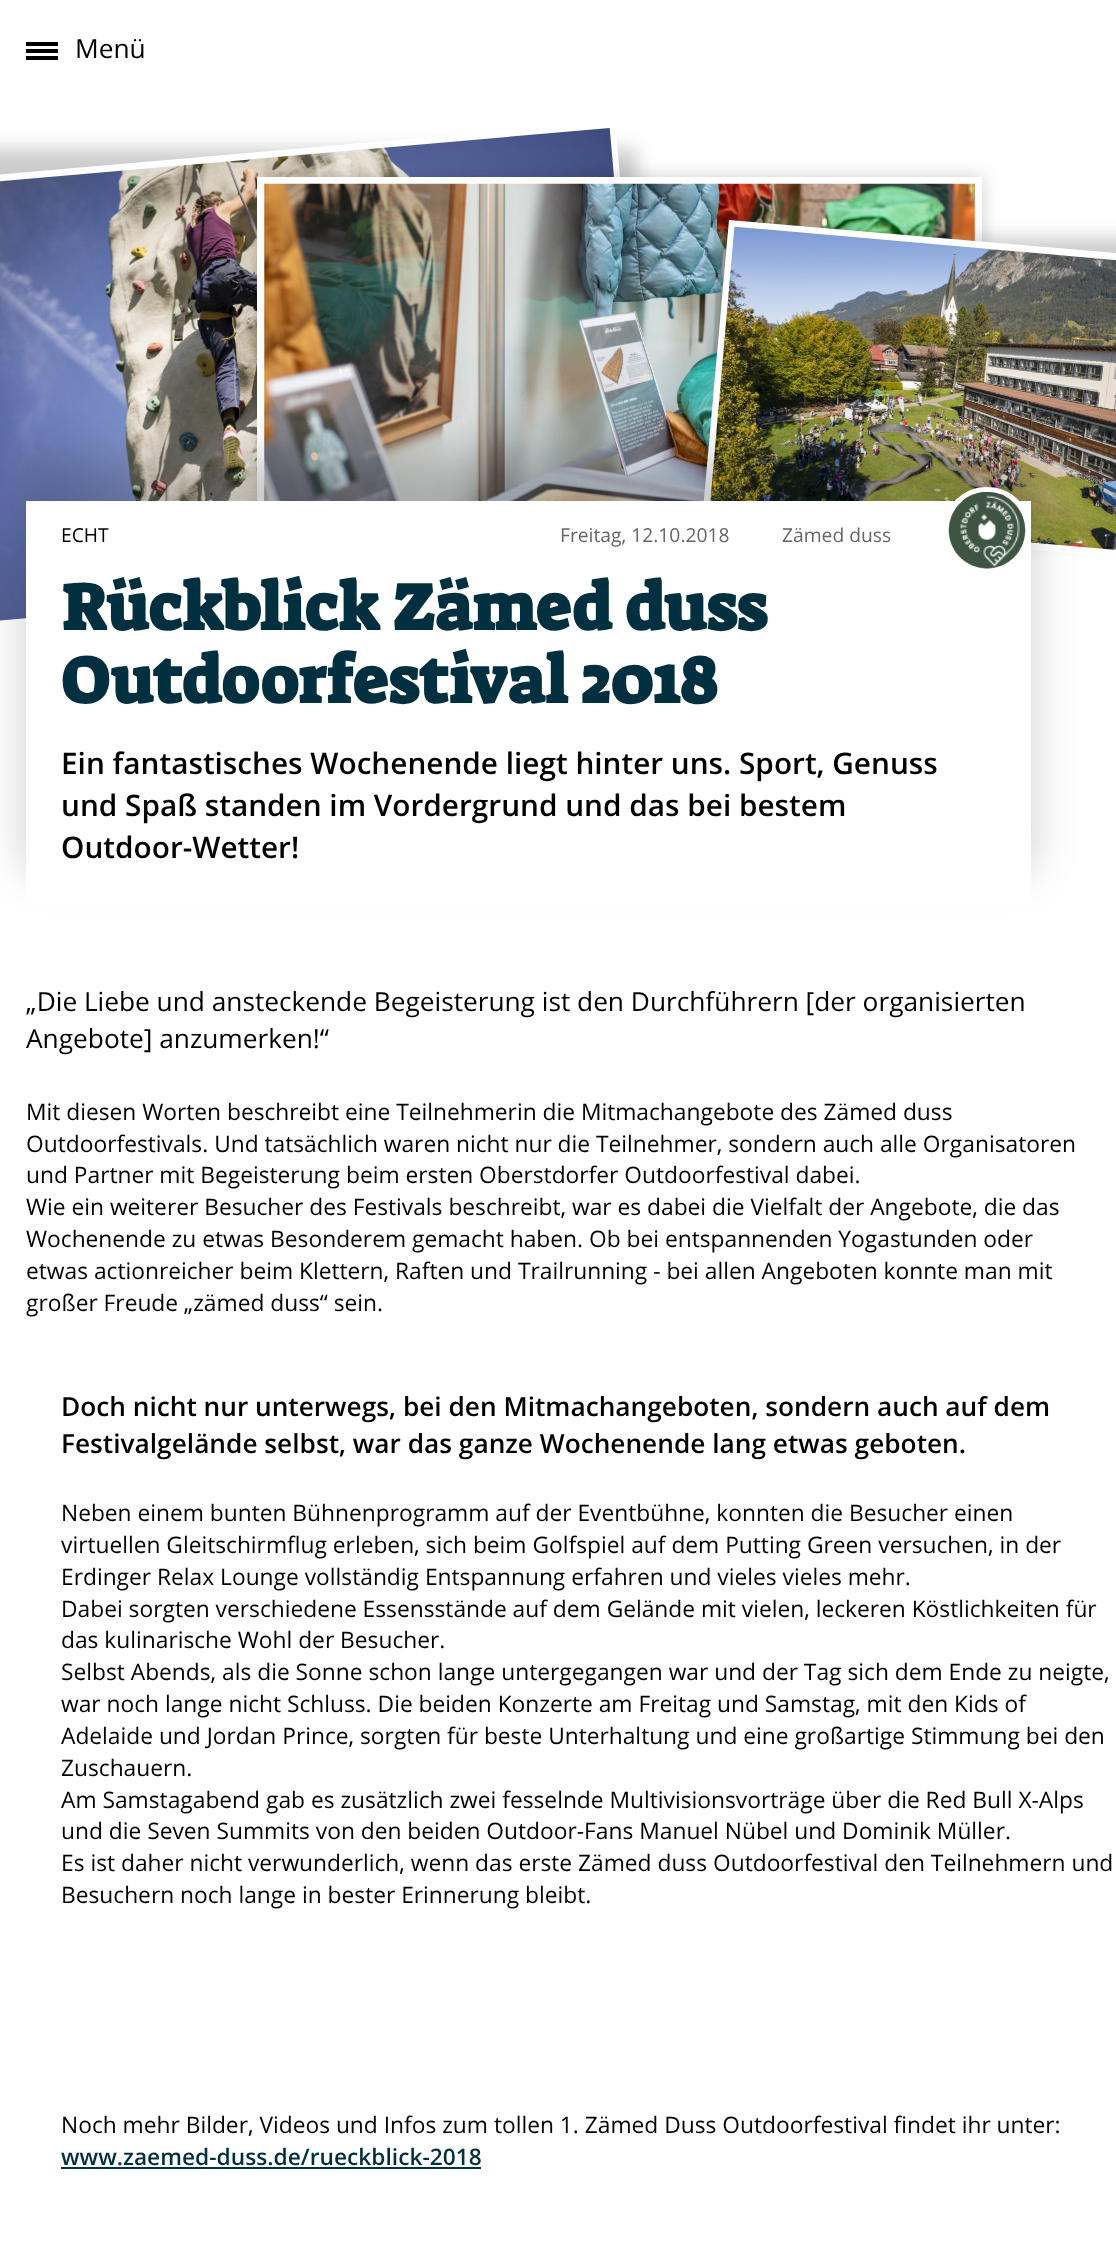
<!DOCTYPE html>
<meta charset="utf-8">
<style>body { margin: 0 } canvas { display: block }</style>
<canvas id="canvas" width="1116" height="2241"></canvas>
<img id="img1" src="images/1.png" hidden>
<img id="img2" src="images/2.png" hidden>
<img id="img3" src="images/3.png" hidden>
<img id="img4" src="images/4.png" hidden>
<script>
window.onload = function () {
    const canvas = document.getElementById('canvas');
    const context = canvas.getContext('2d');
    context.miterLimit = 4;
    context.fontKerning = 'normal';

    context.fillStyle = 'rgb(255, 255, 255)';
    context.fillRect(0, 0, 1116, 2241);
    context.fillStyle = 'rgb(0, 0, 0)';
    context.fillRect(26, 42, 32, 4);
    context.fillRect(26, 49, 32, 4);
    context.fillRect(26, 56, 32, 4);
    context.fillStyle = 'rgba(0, 0, 0, 0.2)';
    context.filter = 'blur(9px)';
    context.beginPath();
    context.rect(-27, 149, 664, 451);
    context.fill();
    context.filter = 'none';
    context.fillStyle = 'rgb(255, 255, 255)';
    context.beginPath();
    context.moveTo(-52, 179);
    context.lineTo(615, 121);
    context.lineTo(655, 571);
    context.lineTo(-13, 629);
    context.closePath();
    context.fill();
    context.drawImage(document.getElementById('img1'), 0, 128, 614, 493);
    context.fillStyle = 'rgba(0, 0, 0, 0.2)';
    context.filter = 'blur(9px)';
    context.beginPath();
    context.rect(257, 177, 725, 399);
    context.fill();
    context.filter = 'none';
    context.fillStyle = 'rgb(255, 255, 255)';
    context.fillRect(257, 177, 725, 324);
    context.drawImage(document.getElementById('img2'), 264, 183, 711, 318);
    context.fillStyle = 'rgba(0, 0, 0, 0.2)';
    context.filter = 'blur(9px)';
    context.beginPath();
    context.rect(714, 238, 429, 303);
    context.fill();
    context.filter = 'none';
    context.fillStyle = 'rgb(255, 255, 255)';
    context.beginPath();
    context.moveTo(729, 220);
    context.lineTo(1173, 258);
    context.lineTo(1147, 560);
    context.lineTo(702, 521);
    context.closePath();
    context.fill();
    context.drawImage(document.getElementById('img3'), 710, 226, 406, 324);
    context.fillStyle = 'rgba(0, 0, 0, 0.2)';
    context.filter = 'blur(22px)';
    context.beginPath();
    context.rect(26, 457, 1005, 413);
    context.fill();
    context.filter = 'none';
    context.fillStyle = 'rgb(255, 255, 255)';
    context.fillRect(26, 501, 1005, 405);
    context.beginPath();
    context.roundRect(945.5, 489.5, 83, 82, 41);
    context.strokeStyle = 'rgb(255, 255, 255)';
    context.lineWidth = 5;
    context.stroke();
    context.drawImage(document.getElementById('img4'), 948, 491, 78, 78);
    context.fillStyle = 'rgb(0, 48, 63)';
    context.fillRect(61, 2167, 420, 2);
    context.font = '26.25px Open Sans';
    context.fillStyle = 'rgb(0, 0, 0)';
    context.fillText('Menü', 75, 58);
    context.font = '19.25px Open Sans';
    context.fillText('ECHT', 61, 542);
    context.fillStyle = 'rgb(102, 102, 102)';
    context.fillText('Freitag, 12.10.2018', 560, 542);
    context.fillText('Zämed duss', 782, 542);
    context.font = 'bold 66.5px Suez One';
    context.fillStyle = 'rgb(0, 48, 63)';
    context.fillText('Rückblick Zämed duss', 61, 630);
    context.fillText('Outdoorfestival 2018', 61, 703);
    context.font = '600 29.75px Open Sans';
    context.fillStyle = 'rgb(0, 0, 0)';
    context.fillText('Ein fantastisches Wochenende liegt hinter uns. Sport, Genuss', 61, 774);
    context.fillText('und Spaß standen im Vordergrund und das bei bestem', 61, 816);
    context.fillText('Outdoor-Wetter!', 61, 858);
    context.font = '26.25px Open Sans';
    context.fillText('„Die Liebe und ansteckende Begeisterung ist den Durchführern [der organisierten', 26, 1011);
    context.fillText('Angebote] anzumerken!“', 26, 1048);
    context.font = '22.75px Open Sans';
    context.fillText('Mit diesen Worten beschreibt eine Teilnehmerin die Mitmachangebote des Zämed duss', 26, 1120);
    context.fillText('Outdoorfestivals. Und tatsächlich waren nicht nur die Teilnehmer, sondern auch alle Organisatoren', 26, 1152);
    context.fillText('und Partner mit Begeisterung beim ersten Oberstdorfer Outdoorfestival dabei.', 26, 1183);
    context.fillText('Wie ein weiterer Besucher des Festivals beschreibt, war es dabei die Vielfalt der Angebote, die das', 26, 1215);
    context.fillText('Wochenende zu etwas Besonderem gemacht haben. Ob bei entspannenden Yogastunden oder', 26, 1247);
    context.fillText('etwas actionreicher beim Klettern, Raften und Trailrunning - bei allen Angeboten konnte man mit', 26, 1279);
    context.fillText('großer Freude „zämed duss“ sein.', 26, 1311);
    context.font = '600 26.25px Open Sans';
    context.fillText('Doch nicht nur unterwegs, bei den Mitmachangeboten, sondern auch auf dem', 61, 1416);
    context.fillText('Festivalgelände selbst, war das ganze Wochenende lang etwas geboten.', 61, 1453);
    context.font = '22.75px Open Sans';
    context.fillText('Neben einem bunten Bühnenprogramm auf der Eventbühne, konnten die Besucher einen', 61, 1521);
    context.fillText('virtuellen Gleitschirmflug erleben, sich beim Golfspiel auf dem Putting Green versuchen, in der', 61, 1553);
    context.fillText('Erdinger Relax Lounge vollständig Entspannung erfahren und vieles vieles mehr.', 61, 1585);
    context.fillText('Dabei sorgten verschiedene Essensstände auf dem Gelände mit vielen, leckeren Köstlichkeiten für', 61, 1617);
    context.fillText('das kulinarische Wohl der Besucher.', 61, 1648);
    context.fillText('Selbst Abends, als die Sonne schon lange untergegangen war und der Tag sich dem Ende zu neigte,', 61, 1680);
    context.fillText('war noch lange nicht Schluss. Die beiden Konzerte am Freitag und Samstag, mit den Kids of', 61, 1712);
    context.fillText('Adelaide und Jordan Prince, sorgten für beste Unterhaltung und eine großartige Stimmung bei den', 61, 1744);
    context.fillText('Zuschauern.', 61, 1776);
    context.fillText('Am Samstagabend gab es zusätzlich zwei fesselnde Multivisionsvorträge über die Red Bull X-Alps', 61, 1808);
    context.fillText('und die Seven Summits von den beiden Outdoor-Fans Manuel Nübel und Dominik Müller.', 61, 1839);
    context.fillText('Es ist daher nicht verwunderlich, wenn das erste Zämed duss Outdoorfestival den Teilnehmern und', 61, 1871);
    context.fillText('Besuchern noch lange in bester Erinnerung bleibt.', 61, 1903);
    context.fillText('Noch mehr Bilder, Videos und Infos zum tollen 1. Zämed Duss Outdoorfestival findet ihr unter:', 61, 2133);
    context.font = '600 22.75px Open Sans';
    context.fillStyle = 'rgb(0, 48, 63)';
    context.fillText('www.zaemed-duss.de/rueckblick-2018', 61, 2165);
};
</script>
